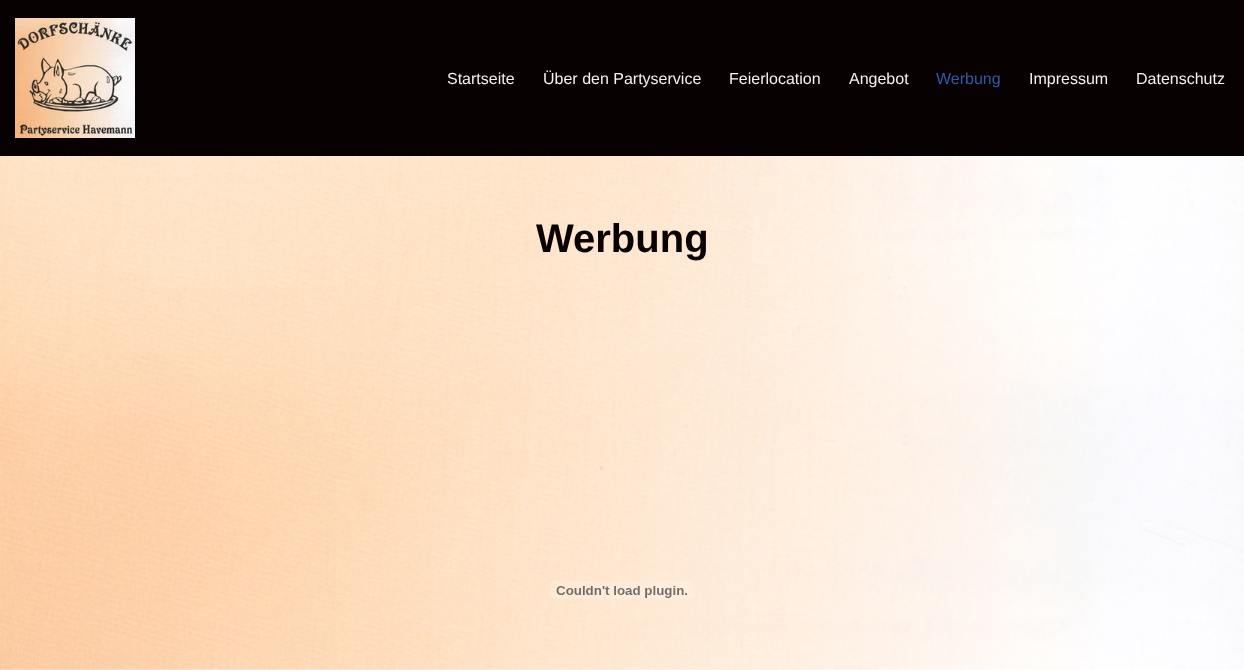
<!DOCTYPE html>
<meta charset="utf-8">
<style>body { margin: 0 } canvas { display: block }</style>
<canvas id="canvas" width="1244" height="670"></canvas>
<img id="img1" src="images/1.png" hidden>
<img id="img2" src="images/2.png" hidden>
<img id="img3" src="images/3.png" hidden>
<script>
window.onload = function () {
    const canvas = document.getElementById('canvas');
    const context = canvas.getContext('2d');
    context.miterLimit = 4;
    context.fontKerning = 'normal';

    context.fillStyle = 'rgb(255, 255, 255)';
    context.fillRect(0, 0, 1244, 670);
    context.drawImage(document.getElementById('img1'), 0, 156, 1244, 514);
    context.fillStyle = 'rgb(7, 1, 1)';
    context.fillRect(0, 0, 1244, 156);
    context.drawImage(document.getElementById('img2'), 15, 18, 120, 120);
    context.drawImage(document.getElementById('img3'), 550, 581, 144, 18);
    context.font = '16px Liberation Sans';
    context.fillStyle = 'rgb(247, 239, 239)';
    context.fillText('Startseite', 447, 84);
    context.fillText('Über den Partyservice', 543, 84);
    context.fillText('Feierlocation', 729, 84);
    context.fillText('Angebot', 849, 84);
    context.fillStyle = 'rgb(47, 90, 174)';
    context.fillText('Werbung', 936, 84);
    context.fillStyle = 'rgb(247, 239, 239)';
    context.fillText('Impressum', 1029, 84);
    context.fillText('Datenschutz', 1136, 84);
    context.font = 'bold 40px Liberation Sans';
    context.fillStyle = 'rgb(9, 0, 0)';
    context.fillText('Werbung', 536, 252);
};
</script>
